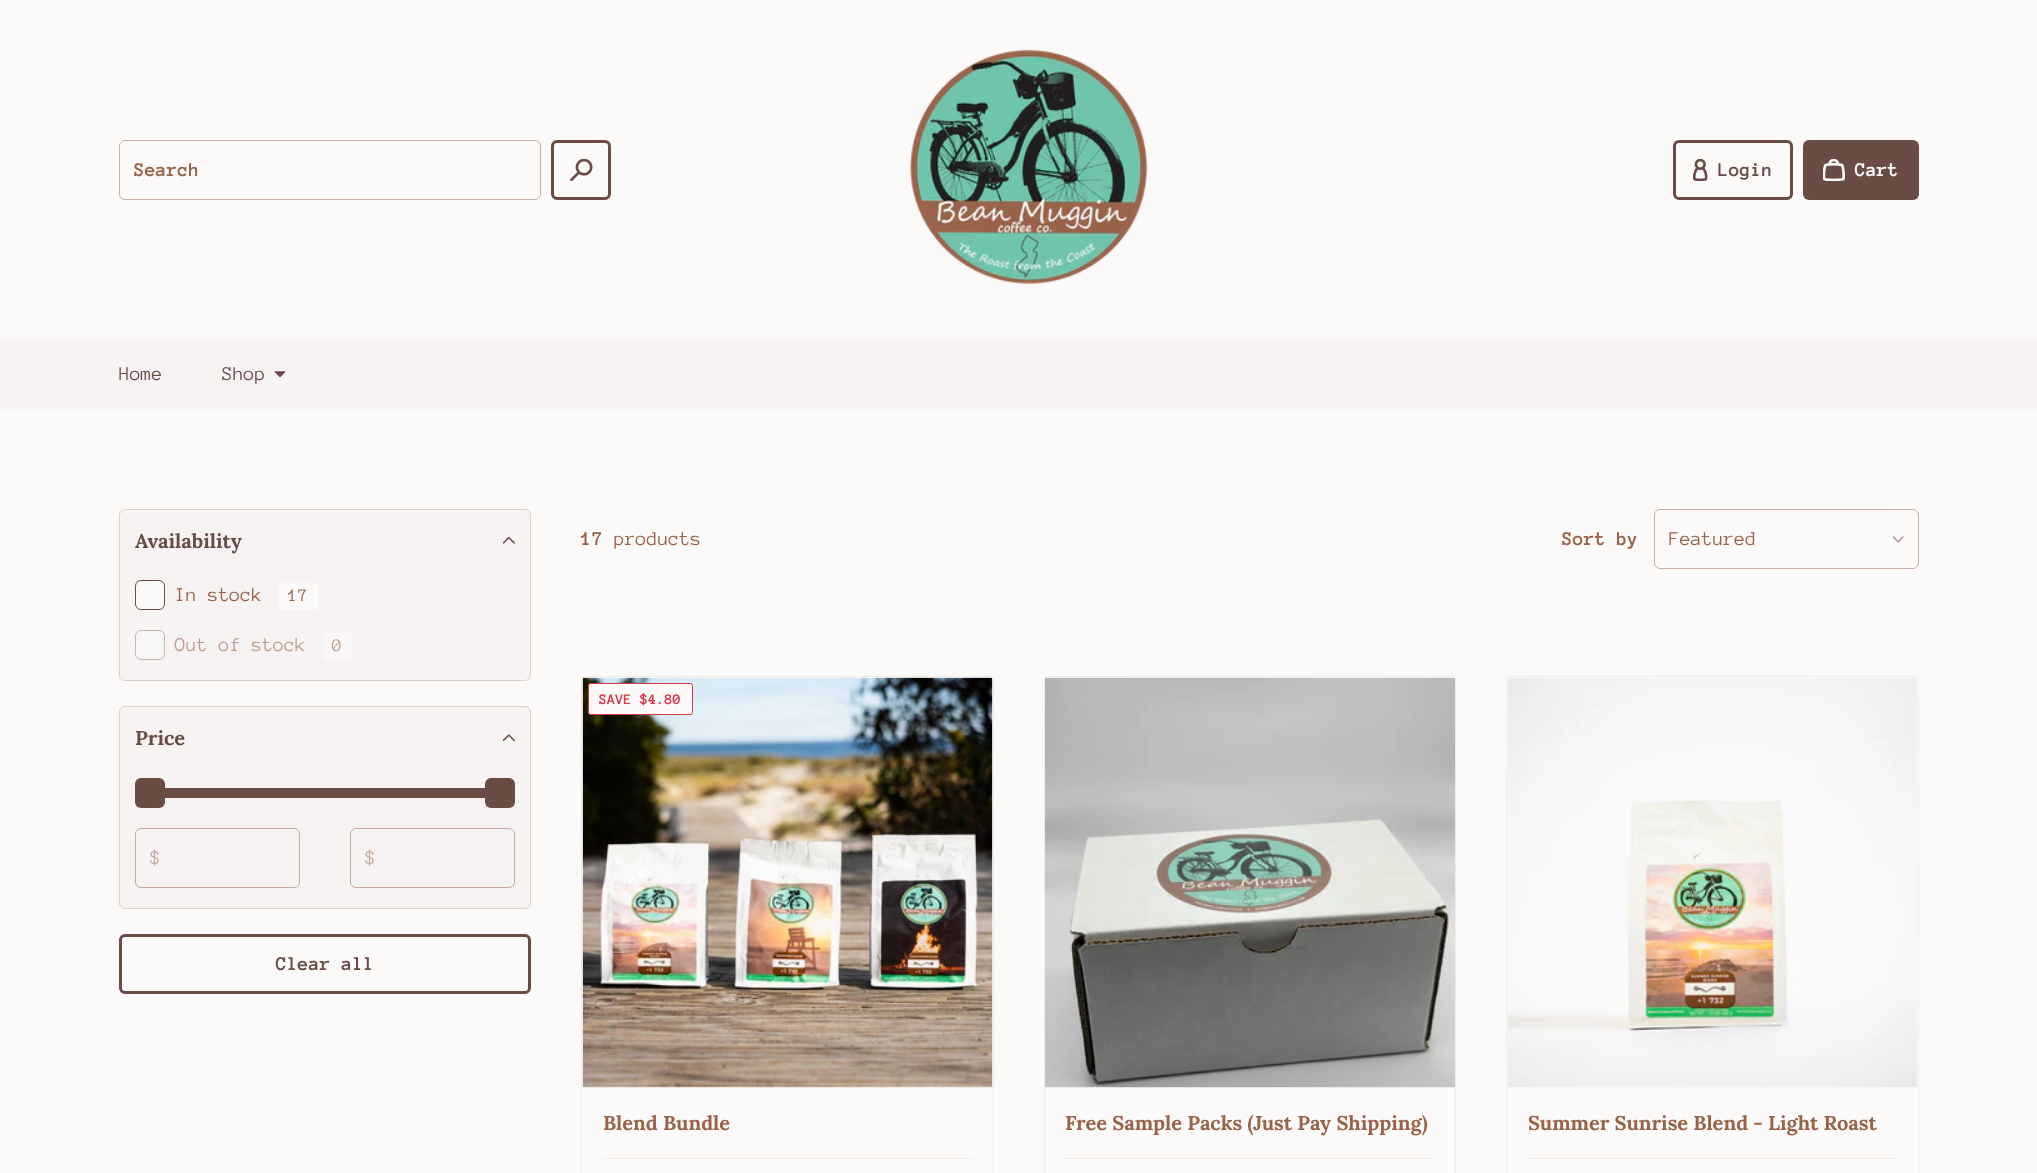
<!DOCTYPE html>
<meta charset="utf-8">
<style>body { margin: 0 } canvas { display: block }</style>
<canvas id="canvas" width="2037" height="1173"></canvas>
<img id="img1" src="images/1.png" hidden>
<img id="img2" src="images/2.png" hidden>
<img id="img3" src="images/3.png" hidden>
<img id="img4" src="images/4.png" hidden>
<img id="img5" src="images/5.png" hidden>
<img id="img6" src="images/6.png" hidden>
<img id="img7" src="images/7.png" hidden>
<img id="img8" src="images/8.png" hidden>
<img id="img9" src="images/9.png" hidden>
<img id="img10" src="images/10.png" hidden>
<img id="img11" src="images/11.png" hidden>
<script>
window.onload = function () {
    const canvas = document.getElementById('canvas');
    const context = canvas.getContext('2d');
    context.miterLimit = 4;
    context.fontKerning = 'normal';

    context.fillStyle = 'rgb(251, 250, 249)';
    context.fillRect(0, 0, 2037, 1173);
    context.beginPath();
    context.roundRect(119.5, 140.5, 421, 59, 5.5);
    context.strokeStyle = 'rgb(202, 175, 161)';
    context.stroke();
    context.beginPath();
    context.roundRect(552.5, 141.5, 57, 57, 4.5);
    context.strokeStyle = 'rgb(105, 77, 69)';
    context.lineWidth = 3;
    context.stroke();
    context.drawImage(document.getElementById('img1'), 570, 159, 23, 22);
    context.drawImage(document.getElementById('img2'), 909, 49, 239, 235);
    context.beginPath();
    context.roundRect(1674.5, 141.5, 117, 57, 4.5);
    context.stroke();
    context.drawImage(document.getElementById('img3'), 1693, 159, 15, 22);
    context.fillStyle = 'rgb(105, 77, 69)';
    context.beginPath();
    context.roundRect(1803, 140, 116, 60, 6);
    context.fill();
    context.drawImage(document.getElementById('img4'), 1823, 159, 22, 22);
    context.fillStyle = 'rgb(247, 243, 243)';
    context.fillRect(0, 339, 2037, 70);
    context.drawImage(document.getElementById('img5'), 274, 371, 12, 7);
    context.beginPath();
    context.roundRect(119.5, 509.5, 411, 171, 5.5);
    context.fill();
    context.strokeStyle = 'rgb(223, 207, 201)';
    context.lineWidth = 1;
    context.stroke();
    context.drawImage(document.getElementById('img6'), 503, 536, 12, 8);
    context.fillStyle = 'rgb(251, 250, 249)';
    context.beginPath();
    context.roundRect(135.5, 580.5, 29, 29, 5.5);
    context.fill();
    context.strokeStyle = 'rgb(105, 77, 69)';
    context.stroke();
    context.beginPath();
    context.roundRect(279, 583, 39, 27, 2.5);
    context.fill();
    context.fillStyle = 'rgb(248, 246, 245)';
    context.beginPath();
    context.roundRect(135.5, 630.5, 29, 29, 5.5);
    context.fill();
    context.strokeStyle = 'rgb(196, 183, 180)';
    context.stroke();
    context.fillStyle = 'rgb(249, 247, 247)';
    context.beginPath();
    context.roundRect(323, 633, 28, 27, 2.5);
    context.fill();
    context.fillStyle = 'rgb(247, 243, 243)';
    context.beginPath();
    context.roundRect(119.5, 706.5, 411, 202, 5.5);
    context.fill();
    context.strokeStyle = 'rgb(223, 207, 201)';
    context.stroke();
    context.drawImage(document.getElementById('img7'), 503, 734, 12, 7);
    context.fillStyle = 'rgb(105, 77, 69)';
    context.beginPath();
    context.roundRect(135, 778, 30, 30, 6);
    context.fill();
    context.beginPath();
    context.roundRect(485, 778, 30, 30, 6);
    context.fill();
    context.beginPath();
    context.roundRect(135, 788, 380, 10, 5);
    context.fill();
    context.beginPath();
    context.roundRect(135.5, 828.5, 164, 59, 5.5);
    context.strokeStyle = 'rgb(200, 171, 158)';
    context.stroke();
    context.beginPath();
    context.roundRect(350.5, 828.5, 164, 59, 5.5);
    context.stroke();
    context.beginPath();
    context.roundRect(120.5, 935.5, 409, 57, 4.5);
    context.strokeStyle = 'rgb(105, 77, 69)';
    context.lineWidth = 3;
    context.stroke();
    context.beginPath();
    context.roundRect(1654.5, 509.5, 264, 59, 5.5);
    context.strokeStyle = 'rgb(202, 175, 161)';
    context.lineWidth = 1;
    context.stroke();
    context.drawImage(document.getElementById('img8'), 1893, 536, 11, 7);
    context.beginPath();
    context.roundRect(581.5, 676.5, 412, 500, 2);
    context.strokeStyle = 'rgb(241, 235, 231)';
    context.stroke();
    context.drawImage(document.getElementById('img9'), 582, 677, 411, 411);
    context.fillStyle = 'rgb(251, 250, 249)';
    context.beginPath();
    context.roundRect(588.5, 683.5, 104, 31, 2);
    context.fill();
    context.strokeStyle = 'rgb(220, 53, 69)';
    context.stroke();
    context.fillStyle = 'rgb(241, 235, 231)';
    context.fillRect(603, 1158, 370, 1);
    context.beginPath();
    context.roundRect(1044.5, 676.5, 411, 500, 2);
    context.strokeStyle = 'rgb(241, 235, 231)';
    context.stroke();
    context.drawImage(document.getElementById('img10'), 1045, 677, 410, 411);
    context.fillRect(1065, 1158, 370, 1);
    context.beginPath();
    context.roundRect(1506.5, 676.5, 412, 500, 2);
    context.stroke();
    context.drawImage(document.getElementById('img11'), 1508, 678, 409, 410);
    context.fillRect(1528, 1158, 370, 1);
    context.font = 'bold 20px Anonymous Pro';
    context.fillStyle = 'rgb(152, 99, 73)';
    context.fillText('Search', 134, 176);
    context.fillStyle = 'rgb(105, 77, 69)';
    context.fillText('Login', 1718, 176);
    context.fillStyle = 'rgb(251, 250, 249)';
    context.fillText('Cart', 1855, 176);
    context.font = '20px Anonymous Pro';
    context.fillStyle = 'rgb(105, 77, 69)';
    context.fillText('Home', 119, 380);
    context.fillText('Shop', 222, 380);
    context.font = 'bold 20px Lora';
    context.fillText('Availability', 135, 548);
    context.font = '20px Anonymous Pro';
    context.fillStyle = 'rgb(152, 99, 73)';
    context.fillText('In stock', 175, 601);
    context.font = '18px Anonymous Pro';
    context.fillText('17', 288, 601);
    context.font = '20px Anonymous Pro';
    context.fillStyle = 'rgb(190, 157, 141)';
    context.fillText('Out of stock', 175, 651);
    context.font = '18px Anonymous Pro';
    context.fillText('0', 332, 651);
    context.font = 'bold 20px Lora';
    context.fillStyle = 'rgb(105, 77, 69)';
    context.fillText('Price', 135, 745);
    context.font = '20px Anonymous Pro';
    context.fillStyle = 'rgb(200, 171, 158)';
    context.fillText('$', 150, 864);
    context.fillText('$', 365, 864);
    context.font = 'bold 20px Anonymous Pro';
    context.fillStyle = 'rgb(105, 77, 69)';
    context.fillText('Clear all', 276, 970);
    context.fillStyle = 'rgb(152, 99, 73)';
    context.fillText('17', 581, 545);
    context.font = '20px Anonymous Pro';
    context.fillText('products', 614, 545);
    context.font = 'bold 20px Anonymous Pro';
    context.fillText('Sort by', 1562, 545);
    context.font = '20px Anonymous Pro';
    context.fillText('Featured', 1669, 545);
    context.font = 'bold 15px Anonymous Pro';
    context.fillStyle = 'rgb(220, 53, 69)';
    context.fillText('SAVE $4.80', 599, 704);
    context.font = 'bold 20px Lora';
    context.fillStyle = 'rgb(152, 99, 73)';
    context.fillText('Blend Bundle', 603, 1130);
    context.fillText('Free Sample Packs (Just Pay Shipping)', 1065, 1130);
    context.fillText('Summer Sunrise Blend - Light Roast', 1528, 1130);
};
</script>
